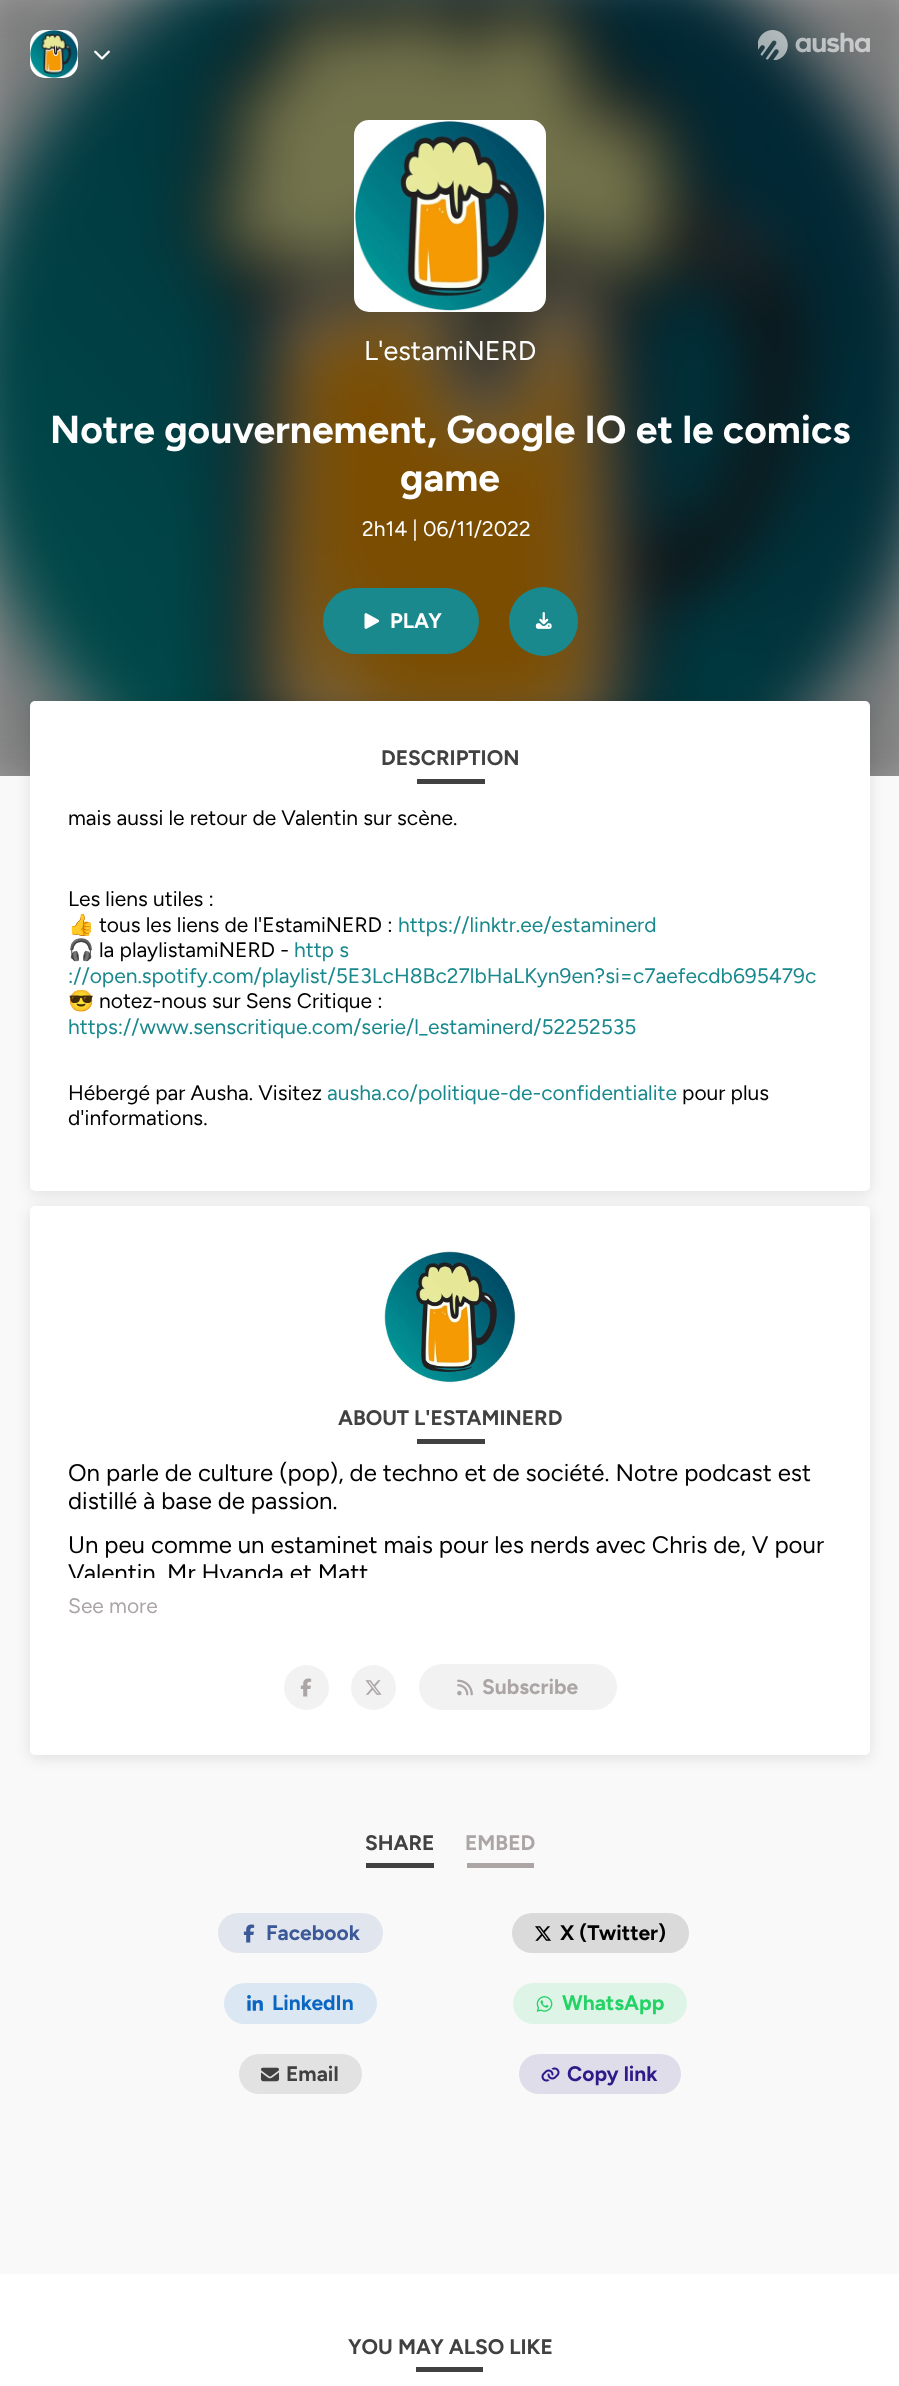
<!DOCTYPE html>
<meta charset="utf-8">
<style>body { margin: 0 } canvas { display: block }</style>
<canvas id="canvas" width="899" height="2386"></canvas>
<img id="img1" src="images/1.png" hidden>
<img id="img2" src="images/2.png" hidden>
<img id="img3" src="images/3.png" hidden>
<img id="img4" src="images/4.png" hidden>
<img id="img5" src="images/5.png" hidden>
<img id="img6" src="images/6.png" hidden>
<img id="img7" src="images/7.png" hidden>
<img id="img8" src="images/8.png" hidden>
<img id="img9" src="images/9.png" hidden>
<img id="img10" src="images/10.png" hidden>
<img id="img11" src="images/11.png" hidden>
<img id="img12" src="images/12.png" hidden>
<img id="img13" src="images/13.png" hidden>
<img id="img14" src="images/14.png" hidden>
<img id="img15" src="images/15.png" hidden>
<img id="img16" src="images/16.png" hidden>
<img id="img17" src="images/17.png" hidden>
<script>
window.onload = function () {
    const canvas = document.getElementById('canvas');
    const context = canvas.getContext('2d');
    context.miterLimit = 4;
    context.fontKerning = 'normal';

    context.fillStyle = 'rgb(255, 255, 255)';
    context.fillRect(0, 0, 899, 2386);
    context.drawImage(document.getElementById('img1'), 0, 0, 899, 776);
    context.fillStyle = 'rgba(0, 0, 0, 0.5)';
    context.filter = 'blur(30px)';
    context.beginPath();
    context.rect(-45, -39, 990, 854);
    context.fill();
    context.filter = 'none';
    context.drawImage(document.getElementById('img2'), 30, 30, 48, 48);
    context.drawImage(document.getElementById('img3'), 94, 50, 16, 10);
    context.drawImage(document.getElementById('img4'), 758, 30, 112, 30);
    context.drawImage(document.getElementById('img5'), 354, 120, 192, 192);
    context.fillStyle = 'rgb(26, 137, 141)';
    context.beginPath();
    context.roundRect(323, 588, 156, 66, 33);
    context.fill();
    context.drawImage(document.getElementById('img6'), 364, 613, 16, 16);
    context.beginPath();
    context.arc(543.5, 621.5, 34.5, 0, 2 * Math.PI);
    context.fill();
    context.drawImage(document.getElementById('img7'), 535, 612, 17, 17);
    context.fillStyle = 'rgb(249, 249, 249)';
    context.fillRect(0, 776, 899, 1498);
    context.fillStyle = 'rgba(0, 0, 0, 0.1)';
    context.filter = 'blur(7.5px)';
    context.beginPath();
    context.roundRect(30, 704, 840, 490, 5);
    context.fill();
    context.filter = 'none';
    context.fillStyle = 'rgb(255, 255, 255)';
    context.beginPath();
    context.roundRect(30, 701, 840, 490, 5);
    context.fill();
    context.fillStyle = 'rgb(65, 65, 65)';
    context.fillRect(417, 779, 68, 5);
    context.fillStyle = 'rgba(0, 0, 0, 0.1)';
    context.filter = 'blur(7.5px)';
    context.beginPath();
    context.roundRect(30, 1209, 840, 549, 5);
    context.fill();
    context.filter = 'none';
    context.fillStyle = 'rgb(255, 255, 255)';
    context.beginPath();
    context.roundRect(30, 1206, 840, 549, 5);
    context.fill();
    context.drawImage(document.getElementById('img8'), 384, 1251, 132, 132);
    context.fillStyle = 'rgb(65, 65, 65)';
    context.fillRect(417, 1439, 68, 5);
    context.fillStyle = 'rgb(242, 242, 242)';
    context.beginPath();
    context.arc(306.5, 1687.5, 22.5, 0, 2 * Math.PI);
    context.fill();
    context.drawImage(document.getElementById('img9'), 300, 1678, 12, 19);
    context.beginPath();
    context.arc(373.5, 1687.5, 22.5, 0, 2 * Math.PI);
    context.fill();
    context.drawImage(document.getElementById('img10'), 365, 1680, 17, 15);
    context.beginPath();
    context.roundRect(419, 1664, 198, 46, 23);
    context.fill();
    context.drawImage(document.getElementById('img11'), 457, 1679, 16, 17);
    context.fillStyle = 'rgb(65, 65, 65)';
    context.fillRect(366, 1863, 68, 5);
    context.fillStyle = 'rgb(172, 165, 165)';
    context.fillRect(467, 1863, 67, 5);
    context.fillStyle = 'rgb(225, 229, 237)';
    context.beginPath();
    context.roundRect(218, 1913, 165, 40, 20);
    context.fill();
    context.drawImage(document.getElementById('img12'), 243, 1924, 12, 19);
    context.fillStyle = 'rgb(218, 218, 218)';
    context.beginPath();
    context.roundRect(512, 1913, 177, 40, 20);
    context.fill();
    context.drawImage(document.getElementById('img13'), 535, 1926, 16, 15);
    context.fillStyle = 'rgb(219, 231, 242)';
    context.beginPath();
    context.roundRect(224, 1983, 153, 41, 20.5);
    context.fill();
    context.drawImage(document.getElementById('img14'), 247, 1995, 16, 16);
    context.fillStyle = 'rgb(222, 244, 231)';
    context.beginPath();
    context.roundRect(513, 1983, 174, 41, 20.5);
    context.fill();
    context.drawImage(document.getElementById('img15'), 536, 1996, 17, 16);
    context.fillStyle = 'rgb(226, 226, 226)';
    context.beginPath();
    context.roundRect(239, 2054, 123, 40, 20);
    context.fill();
    context.drawImage(document.getElementById('img16'), 261, 2067, 18, 15);
    context.fillStyle = 'rgb(224, 221, 235)';
    context.beginPath();
    context.roundRect(519, 2054, 162, 40, 20);
    context.fill();
    context.drawImage(document.getElementById('img17'), 541, 2067, 19, 15);
    context.fillStyle = 'rgb(65, 65, 65)';
    context.fillRect(416, 2367, 67, 5);
    context.font = '27px Figtree';
    context.fillStyle = 'rgb(255, 255, 255)';
    context.fillText('L\'estamiNERD', 364, 360);
    context.font = 'bold 39px Figtree';
    context.fillText('Notre gouvernement, Google IO et le comics', 50, 443);
    context.fillText('game', 400, 491);
    context.font = '21px Figtree';
    context.fillText('2h14 | 06/11/2022', 362, 536);
    context.font = 'bold 21px Figtree';
    context.fillText('PLAY', 390, 628);
    context.fillStyle = 'rgb(65, 65, 65)';
    context.fillText('DESCRIPTION', 381, 765);
    context.font = '21px Figtree';
    context.fillStyle = 'rgb(0, 0, 0)';
    context.fillText('mais aussi le retour de Valentin sur scène.', 68, 825);
    context.fillText('Les liens utiles :', 68, 906);
    context.font = '21px Noto Color Emoji';
    context.fillText('👍', 68, 932);
    context.font = '21px Figtree';
    context.fillText('tous les liens de l\'EstamiNERD :', 99, 932);
    context.fillStyle = 'rgb(26, 137, 141)';
    context.fillText('https://linktr.ee/estaminerd', 398, 932);
    context.font = '21px Noto Color Emoji';
    context.fillStyle = 'rgb(0, 0, 0)';
    context.fillText('🎧', 68, 957);
    context.font = '21px Figtree';
    context.fillText('la playlistamiNERD -', 99, 957);
    context.fillStyle = 'rgb(26, 137, 141)';
    context.fillText('http s', 294, 957);
    context.fillText('://open.spotify.com/playlist/5E3LcH8Bc27lbHaLKyn9en?si=c7aefecdb695479c', 68, 983);
    context.font = '21px Noto Color Emoji';
    context.fillStyle = 'rgb(0, 0, 0)';
    context.fillText('😎', 68, 1008);
    context.font = '21px Figtree';
    context.fillText('notez-nous sur Sens Critique :', 99, 1008);
    context.fillStyle = 'rgb(26, 137, 141)';
    context.fillText('https://www.senscritique.com/serie/l_estaminerd/52252535', 68, 1034);
    context.fillStyle = 'rgb(0, 0, 0)';
    context.fillText('Hébergé par Ausha. Visitez', 68, 1100);
    context.fillStyle = 'rgb(26, 137, 141)';
    context.fillText('ausha.co/politique-de-confidentialite', 327, 1100);
    context.fillStyle = 'rgb(0, 0, 0)';
    context.fillText('pour plus', 682, 1100);
    context.fillText('d\'informations.', 68, 1125);
    context.font = 'bold 21px Figtree';
    context.fillStyle = 'rgb(65, 65, 65)';
    context.fillText('ABOUT L\'ESTAMINERD', 338, 1425);
    context.font = '24px Figtree';
    context.fillStyle = 'rgb(0, 0, 0)';
    context.fillText('On parle de culture (pop), de techno et de société. Notre podcast est', 68, 1481);
    context.fillText('distillé à base de passion.', 68, 1509);
    context.fillText('Un peu comme un estaminet mais pour les nerds avec Chris de, V pour', 68, 1553);
    context.save();
    context.beginPath();
    context.rect(68, 1458, 765, 120);
    context.clip();
    context.fillText('Valentin, Mr Hyanda et Matt', 68, 1581);
    context.restore();
    context.font = '21px Figtree';
    context.fillStyle = 'rgb(172, 165, 165)';
    context.fillText('See more', 68, 1613);
    context.font = 'bold 21px Figtree';
    context.fillText('Subscribe', 482, 1694);
    context.fillStyle = 'rgb(65, 65, 65)';
    context.fillText('SHARE', 365, 1850);
    context.fillStyle = 'rgb(172, 165, 165)';
    context.fillText('EMBED', 465, 1850);
    context.fillStyle = 'rgb(59, 89, 152)';
    context.fillText('Facebook', 266, 1940);
    context.fillStyle = 'rgb(0, 0, 0)';
    context.fillText('X (Twitter)', 560, 1940);
    context.fillStyle = 'rgb(11, 102, 194)';
    context.fillText('LinkedIn', 272, 2010);
    context.fillStyle = 'rgb(36, 211, 102)';
    context.fillText('WhatsApp', 562, 2010);
    context.fillStyle = 'rgb(65, 65, 65)';
    context.fillText('Email', 286, 2081);
    context.fillStyle = 'rgb(46, 26, 136)';
    context.fillText('Copy link', 567, 2081);
    context.fillStyle = 'rgb(65, 65, 65)';
    context.fillText('YOU MAY ALSO LIKE', 348, 2354);
};
</script>
